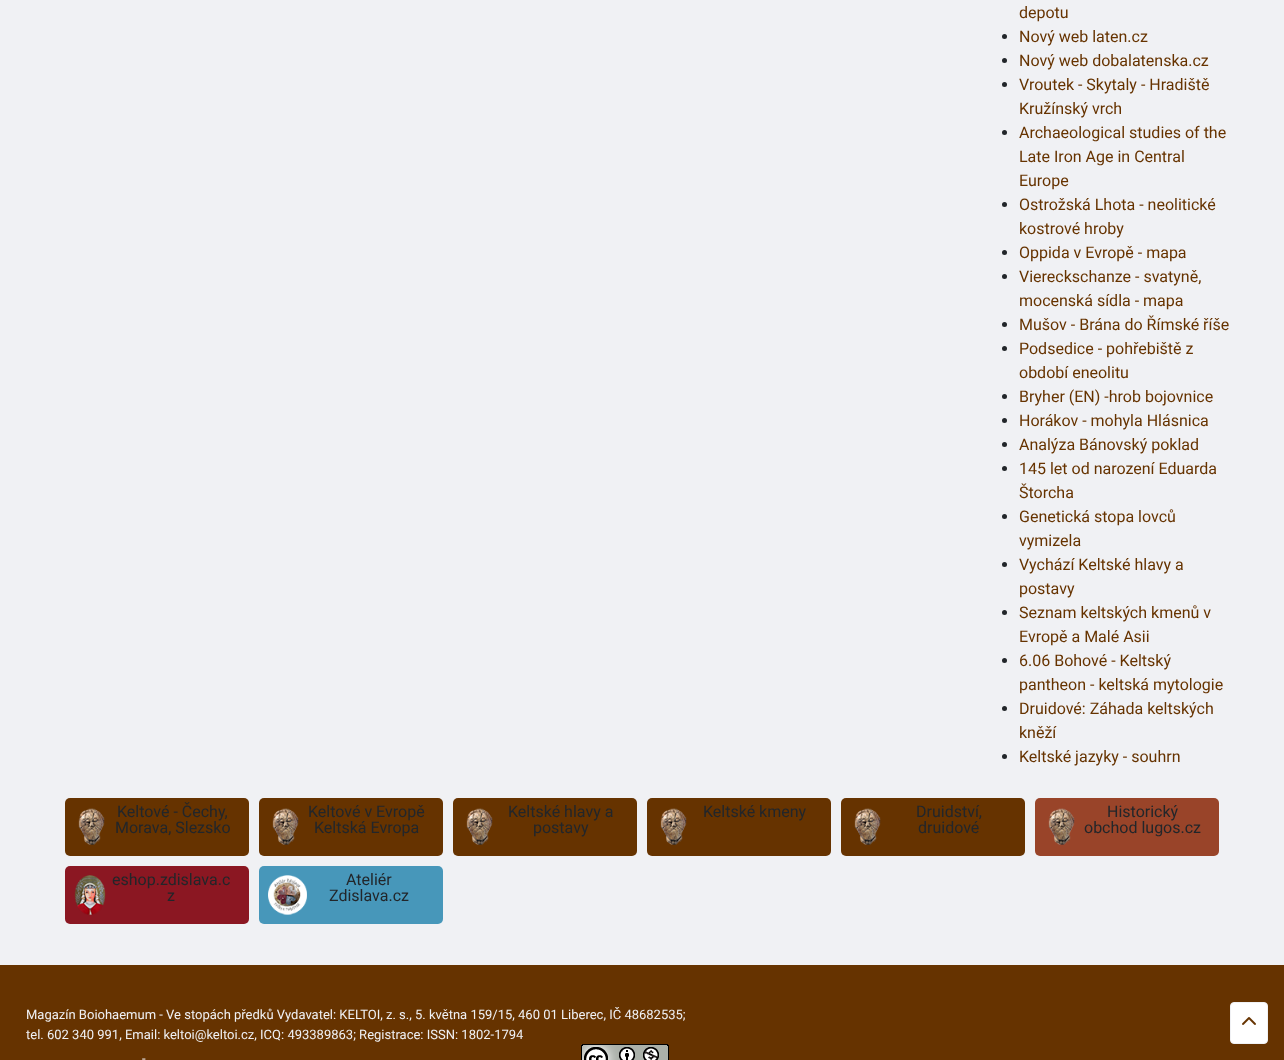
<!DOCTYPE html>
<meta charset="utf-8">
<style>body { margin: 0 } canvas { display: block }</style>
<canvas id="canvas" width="1284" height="1060"></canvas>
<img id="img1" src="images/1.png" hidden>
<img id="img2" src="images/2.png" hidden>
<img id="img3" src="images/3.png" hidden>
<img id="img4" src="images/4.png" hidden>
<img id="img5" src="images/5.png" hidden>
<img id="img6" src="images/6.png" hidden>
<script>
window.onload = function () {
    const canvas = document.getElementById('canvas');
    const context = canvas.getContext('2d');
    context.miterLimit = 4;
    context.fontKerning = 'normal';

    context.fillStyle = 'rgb(240, 241, 244)';
    context.fillRect(0, 0, 1284, 1060);
    context.fillStyle = 'rgb(34, 38, 42)';
    context.beginPath();
    context.arc(1004.5, 36.5, 2.5, 0, 2 * Math.PI);
    context.fill();
    context.beginPath();
    context.arc(1004.5, 60.5, 2.5, 0, 2 * Math.PI);
    context.fill();
    context.beginPath();
    context.arc(1004.5, 84.5, 2.5, 0, 2 * Math.PI);
    context.fill();
    context.beginPath();
    context.arc(1004.5, 132.5, 2.5, 0, 2 * Math.PI);
    context.fill();
    context.beginPath();
    context.arc(1004.5, 204.5, 2.5, 0, 2 * Math.PI);
    context.fill();
    context.beginPath();
    context.arc(1004.5, 252.5, 2.5, 0, 2 * Math.PI);
    context.fill();
    context.beginPath();
    context.arc(1004.5, 276.5, 2.5, 0, 2 * Math.PI);
    context.fill();
    context.beginPath();
    context.arc(1004.5, 324.5, 2.5, 0, 2 * Math.PI);
    context.fill();
    context.beginPath();
    context.arc(1004.5, 348.5, 2.5, 0, 2 * Math.PI);
    context.fill();
    context.beginPath();
    context.arc(1004.5, 396.5, 2.5, 0, 2 * Math.PI);
    context.fill();
    context.beginPath();
    context.arc(1004.5, 420.5, 2.5, 0, 2 * Math.PI);
    context.fill();
    context.beginPath();
    context.arc(1004.5, 444.5, 2.5, 0, 2 * Math.PI);
    context.fill();
    context.beginPath();
    context.arc(1004.5, 468.5, 2.5, 0, 2 * Math.PI);
    context.fill();
    context.beginPath();
    context.arc(1004.5, 516.5, 2.5, 0, 2 * Math.PI);
    context.fill();
    context.beginPath();
    context.arc(1004.5, 564.5, 2.5, 0, 2 * Math.PI);
    context.fill();
    context.beginPath();
    context.arc(1004.5, 612.5, 2.5, 0, 2 * Math.PI);
    context.fill();
    context.beginPath();
    context.arc(1004.5, 660.5, 2.5, 0, 2 * Math.PI);
    context.fill();
    context.beginPath();
    context.arc(1004.5, 708.5, 2.5, 0, 2 * Math.PI);
    context.fill();
    context.beginPath();
    context.arc(1004.5, 756.5, 2.5, 0, 2 * Math.PI);
    context.fill();
    context.fillStyle = 'rgb(102, 51, 0)';
    context.beginPath();
    context.roundRect(65, 798, 184, 58, 5);
    context.fill();
    context.drawImage(document.getElementById('img1'), 78, 808, 27, 37);
    context.beginPath();
    context.roundRect(259, 798, 184, 58, 5);
    context.fill();
    context.drawImage(document.getElementById('img1'), 272, 808, 27, 37);
    context.beginPath();
    context.roundRect(453, 798, 184, 58, 5);
    context.fill();
    context.drawImage(document.getElementById('img1'), 466, 808, 27, 37);
    context.beginPath();
    context.roundRect(647, 798, 184, 58, 5);
    context.fill();
    context.drawImage(document.getElementById('img1'), 660, 808, 27, 37);
    context.beginPath();
    context.roundRect(841, 798, 184, 58, 5);
    context.fill();
    context.drawImage(document.getElementById('img1'), 854, 808, 27, 37);
    context.fillStyle = 'rgb(153, 68, 41)';
    context.beginPath();
    context.roundRect(1035, 798, 184, 58, 5);
    context.fill();
    context.drawImage(document.getElementById('img2'), 1048, 808, 27, 37);
    context.fillStyle = 'rgb(139, 23, 34)';
    context.beginPath();
    context.roundRect(65, 866, 184, 58, 5);
    context.fill();
    context.drawImage(document.getElementById('img3'), 74, 875, 32, 40);
    context.fillStyle = 'rgb(71, 151, 186)';
    context.beginPath();
    context.roundRect(259, 866, 184, 58, 5);
    context.fill();
    context.drawImage(document.getElementById('img4'), 268, 875, 39, 40);
    context.fillStyle = 'rgb(102, 51, 0)';
    context.fillRect(0, 965, 1284, 95);
    context.drawImage(document.getElementById('img5'), 581, 1044, 88, 16);
    context.fillStyle = 'rgb(255, 255, 255)';
    context.beginPath();
    context.roundRect(1230.5, 1002.5, 37, 41, 3.5);
    context.fill();
    context.strokeStyle = 'rgb(240, 241, 244)';
    context.stroke();
    context.drawImage(document.getElementById('img6'), 1242, 1017, 14, 8);
    context.font = '16px Roboto';
    context.fillStyle = 'rgb(102, 51, 0)';
    context.fillText('depotu', 1019, 18);
    context.fillText('Nový web laten.cz', 1019, 42);
    context.fillText('Nový web dobalatenska.cz', 1019, 66);
    context.fillText('Vroutek - Skytaly - Hradiště', 1019, 90);
    context.fillText('Kružínský vrch', 1019, 114);
    context.fillText('Archaeological studies of the', 1019, 138);
    context.fillText('Late Iron Age in Central', 1019, 162);
    context.fillText('Europe', 1019, 186);
    context.fillText('Ostrožská Lhota - neolitické', 1019, 210);
    context.fillText('kostrové hroby', 1019, 234);
    context.fillText('Oppida v Evropě - mapa', 1019, 258);
    context.fillText('Viereckschanze - svatyně,', 1019, 282);
    context.fillText('mocenská sídla - mapa', 1019, 306);
    context.fillText('Mušov - Brána do Římské říše', 1019, 330);
    context.fillText('Podsedice - pohřebiště z', 1019, 354);
    context.fillText('období eneolitu', 1019, 378);
    context.fillText('Bryher (EN) -hrob bojovnice', 1019, 402);
    context.fillText('Horákov - mohyla Hlásnica', 1019, 426);
    context.fillText('Analýza Bánovský poklad', 1019, 450);
    context.fillText('145 let od narození Eduarda', 1019, 474);
    context.fillText('Štorcha', 1019, 498);
    context.fillText('Genetická stopa lovců', 1019, 522);
    context.fillText('vymizela', 1019, 546);
    context.fillText('Vychází Keltské hlavy a', 1019, 570);
    context.fillText('postavy', 1019, 594);
    context.fillText('Seznam keltských kmenů v', 1019, 618);
    context.fillText('Evropě a Malé Asii', 1019, 642);
    context.fillText('6.06 Bohové - Keltský', 1019, 666);
    context.fillText('pantheon - keltská mytologie', 1019, 690);
    context.fillText('Druidové: Záhada keltských', 1019, 714);
    context.fillText('kněží', 1019, 738);
    context.fillText('Keltské jazyky - souhrn', 1019, 762);
    context.fillStyle = 'rgb(34, 38, 42)';
    context.fillText('Keltové - Čechy,', 117, 817);
    context.fillText('Morava, Slezsko', 115, 833);
    context.fillText('Keltové v Evropě', 308, 817);
    context.fillText('Keltská Evropa', 314, 833);
    context.fillText('Keltské hlavy a', 508, 817);
    context.fillText('postavy', 533, 833);
    context.fillText('Keltské kmeny', 703, 817);
    context.fillText('Druidství,', 916, 817);
    context.fillText('druidové', 918, 833);
    context.fillText('Historický', 1107, 817);
    context.fillText('obchod lugos.cz', 1084, 833);
    context.fillText('eshop.zdislava.c', 112, 885);
    context.fillText('z', 167, 901);
    context.fillText('Ateliér', 346, 885);
    context.fillText('Zdislava.cz', 329, 901);
    context.font = '13px Roboto';
    context.fillStyle = 'rgb(240, 241, 244)';
    context.fillText('Magazín Boiohaemum - Ve stopách předků Vydavatel: KELTOI, z. s., 5. května 159/15, 460 01 Liberec, IČ 48682535;', 26, 1019);
    context.fillText('tel. 602 340 991, Email: keltoi@keltoi.cz, ICQ: 493389863; Registrace: ISSN: 1802-1794', 26, 1039);
    context.fillText('-', 142, 1063);
};
</script>
